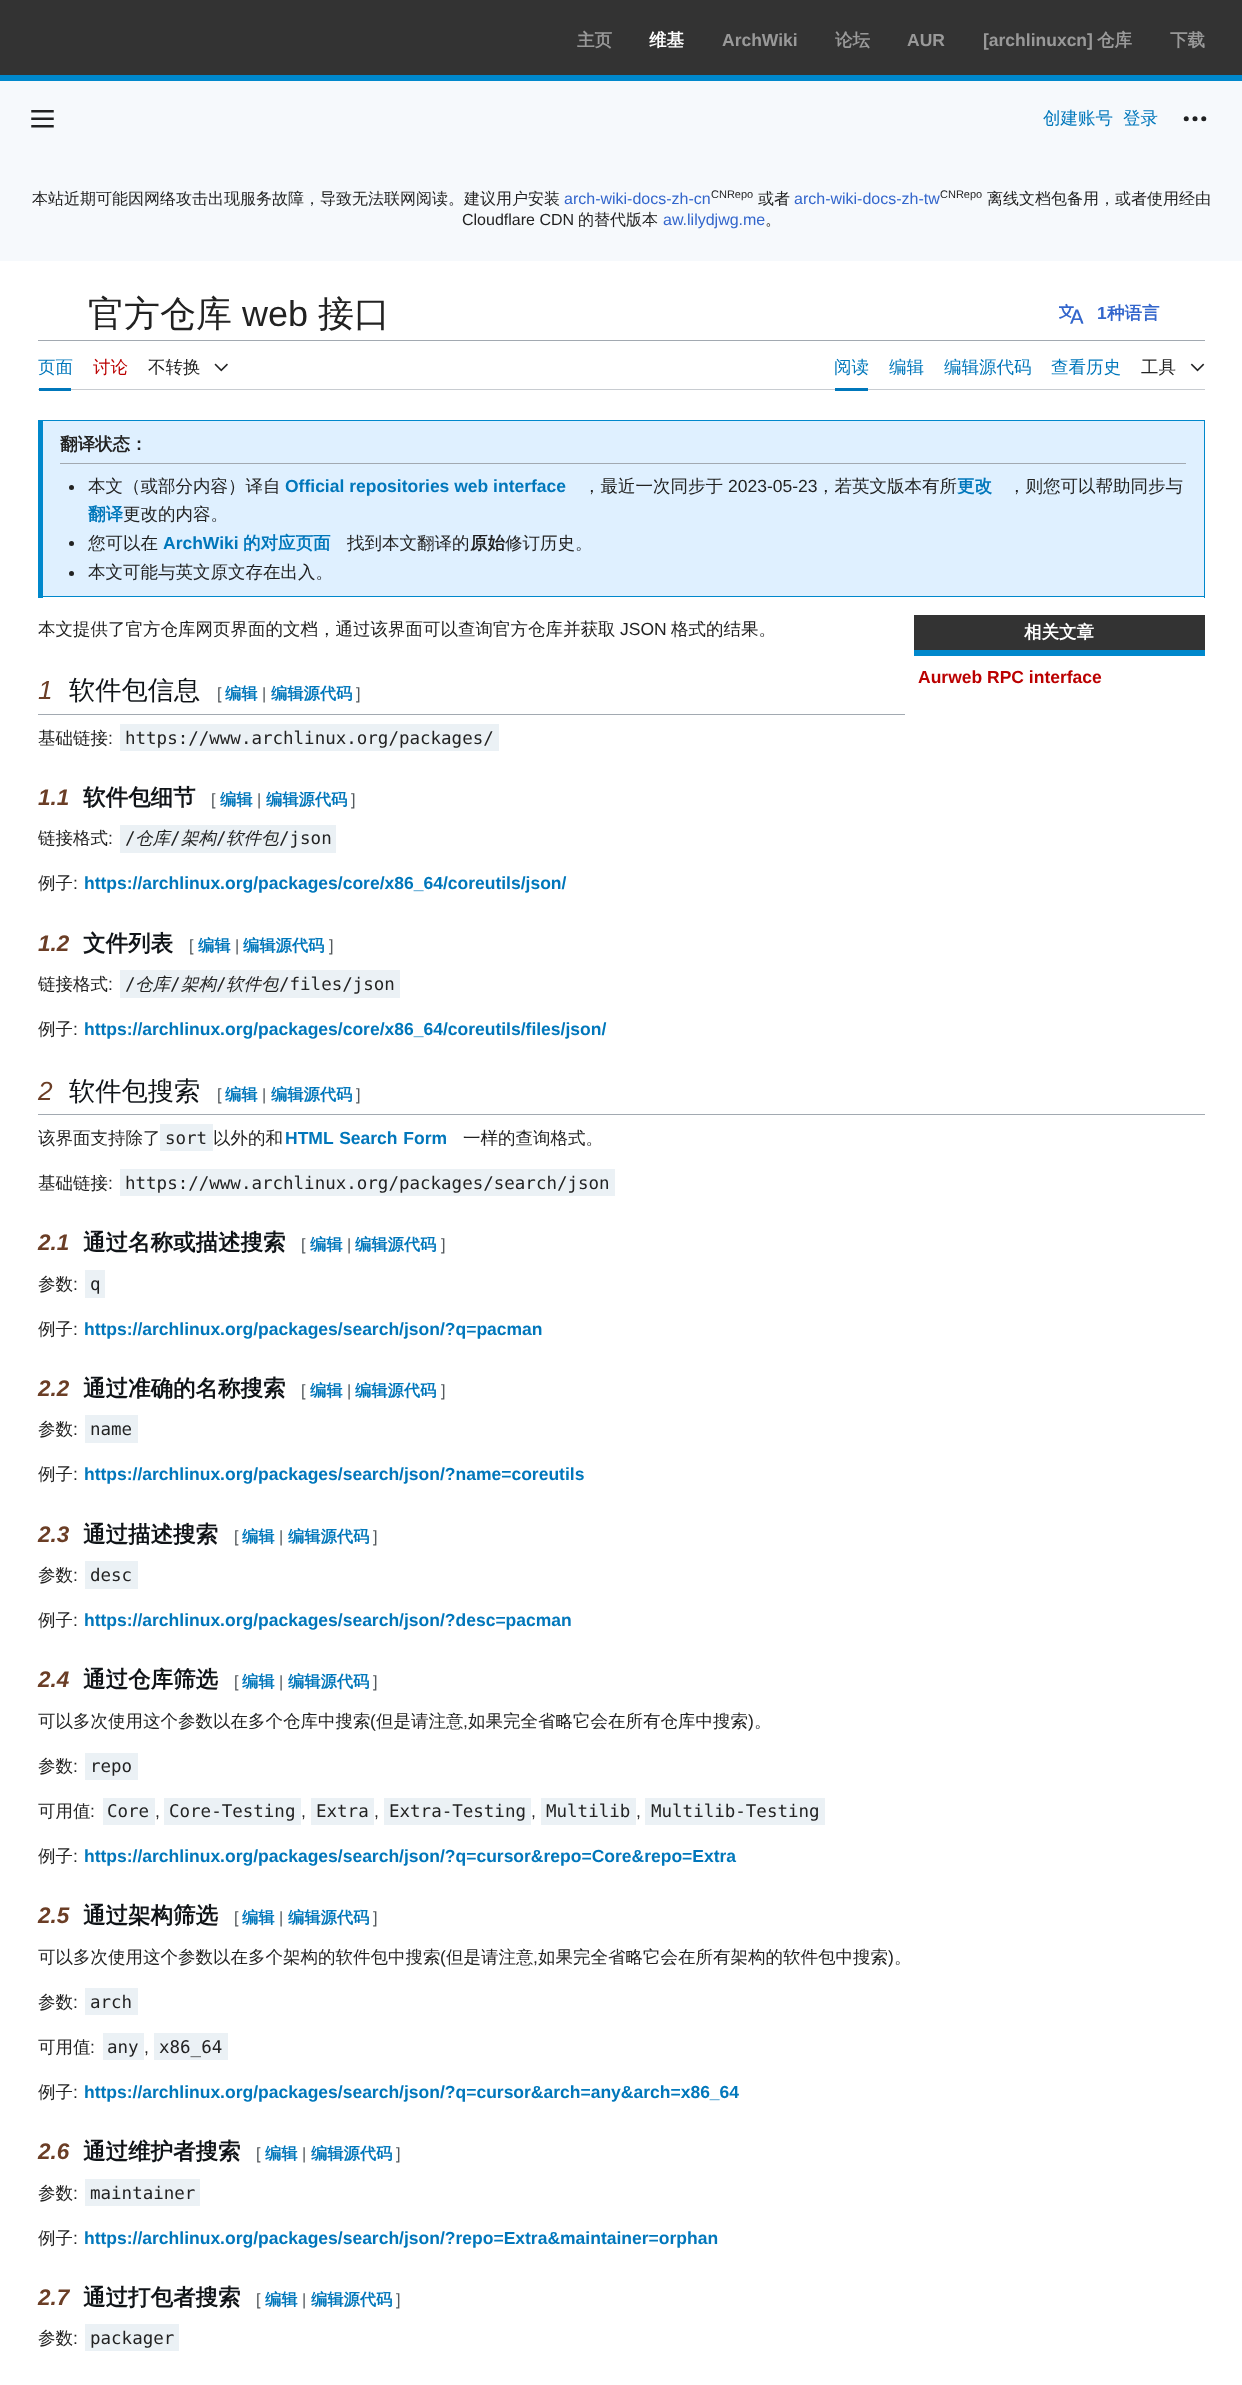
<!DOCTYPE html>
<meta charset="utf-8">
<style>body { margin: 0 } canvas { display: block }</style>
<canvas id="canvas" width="1242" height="2385"></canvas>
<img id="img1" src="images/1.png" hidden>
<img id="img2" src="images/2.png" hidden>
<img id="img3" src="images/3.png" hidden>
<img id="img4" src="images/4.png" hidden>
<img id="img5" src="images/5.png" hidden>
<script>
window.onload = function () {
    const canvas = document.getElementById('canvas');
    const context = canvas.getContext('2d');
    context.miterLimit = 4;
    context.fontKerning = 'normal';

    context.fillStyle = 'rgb(246, 249, 252)';
    context.fillRect(0, 0, 1242, 2385);
    context.fillStyle = 'rgb(51, 51, 51)';
    context.fillRect(0, 0, 1242, 75);
    context.fillStyle = 'rgb(0, 136, 204)';
    context.fillRect(0, 75, 1242, 6);
    context.drawImage(document.getElementById('img1'), 31, 110, 23, 18);
    context.drawImage(document.getElementById('img2'), 1183, 116, 24, 6);
    context.fillStyle = 'rgb(255, 255, 255)';
    context.fillRect(0, 261, 1242, 2124);
    context.drawImage(document.getElementById('img3'), 1059, 303, 25, 21);
    context.fillStyle = 'rgb(162, 169, 177)';
    context.fillRect(38, 340, 1167, 1);
    context.fillStyle = 'rgb(200, 204, 209)';
    context.fillRect(38, 389, 1167, 1);
    context.fillStyle = 'rgb(0, 119, 187)';
    context.fillRect(39, 388, 32, 3);
    context.drawImage(document.getElementById('img4'), 214, 363, 14, 9);
    context.fillRect(835, 388, 33, 3);
    context.drawImage(document.getElementById('img5'), 1190, 363, 15, 9);
    context.fillStyle = 'rgb(223, 240, 255)';
    context.fillRect(43, 421, 1161, 175);
    context.fillStyle = 'rgb(0, 136, 204)';
    context.fillRect(38, 420, 1167, 1);
    context.fillRect(1204, 420, 1, 178);
    context.fillRect(38, 596, 1167, 1);
    context.fillRect(38, 420, 5, 178);
    context.fillStyle = 'rgb(162, 169, 177)';
    context.fillRect(60, 463, 1126, 1);
    context.fillStyle = 'rgb(34, 34, 34)';
    context.beginPath();
    context.arc(71.5, 487.5, 2.5, 0, 2 * Math.PI);
    context.fill();
    context.beginPath();
    context.arc(71.5, 543.5, 2.5, 0, 2 * Math.PI);
    context.fill();
    context.beginPath();
    context.arc(71.5, 573.5, 2.5, 0, 2 * Math.PI);
    context.fill();
    context.fillStyle = 'rgb(51, 51, 51)';
    context.fillRect(914, 615, 291, 35);
    context.fillStyle = 'rgb(0, 136, 204)';
    context.fillRect(914, 650, 291, 6);
    context.fillStyle = 'rgb(162, 169, 177)';
    context.fillRect(38, 714, 867, 1);
    context.fillStyle = 'rgb(235, 241, 245)';
    context.fillRect(120, 724, 379, 27);
    context.fillRect(120, 825, 216, 28);
    context.fillRect(120, 970, 280, 28);
    context.fillStyle = 'rgb(162, 169, 177)';
    context.fillRect(38, 1114, 1167, 1);
    context.fillStyle = 'rgb(235, 241, 245)';
    context.fillRect(160, 1124, 53, 27);
    context.fillRect(120, 1169, 495, 27);
    context.fillRect(85, 1270, 20, 28);
    context.fillRect(85, 1415, 53, 28);
    context.fillRect(85, 1561, 53, 28);
    context.fillRect(85, 1753, 53, 27);
    context.fillRect(103, 1798, 52, 27);
    context.fillRect(164, 1798, 137, 27);
    context.fillRect(311, 1798, 63, 27);
    context.fillRect(384, 1798, 147, 27);
    context.fillRect(541, 1798, 95, 27);
    context.fillRect(645, 1798, 180, 27);
    context.fillRect(85, 1988, 53, 27);
    context.fillRect(103, 2033, 41, 27);
    context.fillRect(154, 2033, 74, 27);
    context.fillRect(85, 2179, 115, 27);
    context.fillRect(85, 2324, 94, 27);
    context.font = 'bold 17.5px WenQuanYi Zen Hei';
    context.fillStyle = 'rgb(153, 153, 153)';
    context.fillText('主页', 577, 46);
    context.fillStyle = 'rgb(255, 255, 255)';
    context.fillText('维基', 649, 46);
    context.font = 'bold 17.5px Liberation Sans';
    context.fillStyle = 'rgb(153, 153, 153)';
    context.fillText('ArchWiki', 722, 46);
    context.font = 'bold 17.5px WenQuanYi Zen Hei';
    context.fillText('论坛', 835, 46);
    context.font = 'bold 17.5px Liberation Sans';
    context.fillText('AUR', 907, 46);
    context.fillText('[archlinuxcn]', 983, 46);
    context.font = 'bold 17.5px WenQuanYi Zen Hei';
    context.fillText('仓库', 1097, 46);
    context.fillText('下载', 1170, 46);
    context.font = '500 17.5px WenQuanYi Zen Hei';
    context.fillStyle = 'rgb(0, 119, 187)';
    context.fillText('创建账号', 1043, 124);
    context.fillText('登录', 1123, 124);
    context.font = '500 16px WenQuanYi Zen Hei';
    context.fillStyle = 'rgb(34, 34, 34)';
    context.fillText('本站近期可能因网络攻击出现服务故障，导致无法联网阅读。建议用户安装', 32, 204);
    context.font = '16px Liberation Sans';
    context.fillStyle = 'rgb(51, 102, 204)';
    context.fillText('arch-wiki-docs-zh-cn', 564, 204);
    context.font = '11px Liberation Sans';
    context.fillStyle = 'rgb(34, 34, 34)';
    context.fillText('CNRepo', 711, 198);
    context.font = '500 16px WenQuanYi Zen Hei';
    context.fillText('或者', 758, 204);
    context.font = '16px Liberation Sans';
    context.fillStyle = 'rgb(51, 102, 204)';
    context.fillText('arch-wiki-docs-zh-tw', 794, 204);
    context.font = '11px Liberation Sans';
    context.fillStyle = 'rgb(34, 34, 34)';
    context.fillText('CNRepo', 940, 198);
    context.font = '500 16px WenQuanYi Zen Hei';
    context.fillText('离线文档包备用，或者使用经由', 987, 204);
    context.font = '16px Liberation Sans';
    context.fillText('Cloudflare CDN', 462, 225);
    context.font = '500 16px WenQuanYi Zen Hei';
    context.fillText('的替代版本', 578, 225);
    context.font = '16px Liberation Sans';
    context.fillStyle = 'rgb(51, 102, 204)';
    context.fillText('aw.lilydjwg.me', 663, 225);
    context.font = '500 16px WenQuanYi Zen Hei';
    context.fillStyle = 'rgb(34, 34, 34)';
    context.fillText('。', 765, 225);
    context.font = '500 36px WenQuanYi Zen Hei';
    context.fillText('官方仓库', 88, 326);
    context.font = '36px Liberation Sans';
    context.fillText('web', 242, 326);
    context.font = '500 36px WenQuanYi Zen Hei';
    context.fillText('接口', 318, 326);
    context.font = 'bold 17.5px Liberation Sans';
    context.fillStyle = 'rgb(51, 102, 204)';
    context.fillText('1', 1097, 319);
    context.font = 'bold 17.5px WenQuanYi Zen Hei';
    context.fillText('种语言', 1107, 319);
    context.font = '500 17.5px WenQuanYi Zen Hei';
    context.fillStyle = 'rgb(0, 119, 187)';
    context.fillText('页面', 38, 373);
    context.fillStyle = 'rgb(187, 0, 0)';
    context.fillText('讨论', 93, 373);
    context.fillStyle = 'rgb(34, 34, 34)';
    context.fillText('不转换', 148, 373);
    context.fillStyle = 'rgb(0, 119, 187)';
    context.fillText('阅读', 834, 373);
    context.fillText('编辑', 889, 373);
    context.fillText('编辑源代码', 944, 373);
    context.fillText('查看历史', 1051, 373);
    context.fillStyle = 'rgb(34, 34, 34)';
    context.fillText('工具', 1141, 373);
    context.font = 'bold 17.5px WenQuanYi Zen Hei';
    context.fillText('翻译状态：', 60, 450);
    context.font = '500 17.5px WenQuanYi Zen Hei';
    context.fillText('本文（或部分内容）译自', 88, 492);
    context.font = 'bold 17.5px Liberation Sans';
    context.fillStyle = 'rgb(0, 119, 187)';
    context.fillText('Official repositories web interface', 285, 492);
    context.font = '500 17.5px WenQuanYi Zen Hei';
    context.fillStyle = 'rgb(34, 34, 34)';
    context.fillText('，最近一次同步于', 583, 492);
    context.font = '17.5px Liberation Sans';
    context.fillText('2023-05-23', 728, 492);
    context.font = '500 17.5px WenQuanYi Zen Hei';
    context.fillText('，若英文版本有所', 817, 492);
    context.font = 'bold 17.5px WenQuanYi Zen Hei';
    context.fillStyle = 'rgb(0, 119, 187)';
    context.fillText('更改', 957, 492);
    context.font = '500 17.5px WenQuanYi Zen Hei';
    context.fillStyle = 'rgb(34, 34, 34)';
    context.fillText('，则您可以帮助同步与', 1008, 492);
    context.font = 'bold 17.5px WenQuanYi Zen Hei';
    context.fillStyle = 'rgb(0, 119, 187)';
    context.fillText('翻译', 88, 520);
    context.font = '500 17.5px WenQuanYi Zen Hei';
    context.fillStyle = 'rgb(34, 34, 34)';
    context.fillText('更改的内容。', 123, 520);
    context.fillText('您可以在', 88, 549);
    context.font = 'bold 17.5px Liberation Sans';
    context.fillStyle = 'rgb(0, 119, 187)';
    context.fillText('ArchWiki', 163, 549);
    context.font = 'bold 17.5px WenQuanYi Zen Hei';
    context.fillText('的对应页面', 243, 549);
    context.font = '500 17.5px WenQuanYi Zen Hei';
    context.fillStyle = 'rgb(34, 34, 34)';
    context.fillText('找到本文翻译的', 347, 549);
    context.font = 'bold 17.5px WenQuanYi Zen Hei';
    context.fillText('原始', 470, 549);
    context.font = '500 17.5px WenQuanYi Zen Hei';
    context.fillText('修订历史。', 505, 549);
    context.fillText('本文可能与英文原文存在出入。', 88, 578);
    context.fillText('本文提供了官方仓库网页界面的文档，通过该界面可以查询官方仓库并获取', 38, 635);
    context.font = '17.5px Liberation Sans';
    context.fillText('JSON', 620, 635);
    context.font = '500 17.5px WenQuanYi Zen Hei';
    context.fillText('格式的结果。', 671, 635);
    context.font = 'bold 17.5px WenQuanYi Zen Hei';
    context.fillStyle = 'rgb(255, 255, 255)';
    context.fillText('相关文章', 1024, 638);
    context.font = 'bold 17.5px Liberation Sans';
    context.fillStyle = 'rgb(187, 0, 0)';
    context.fillText('Aurweb RPC interface', 918, 683);
    context.font = 'italic 26.25px Liberation Sans';
    context.fillStyle = 'rgb(107, 62, 38)';
    context.fillText('1', 38, 699);
    context.font = '500 26.25px WenQuanYi Zen Hei';
    context.fillStyle = 'rgb(16, 20, 24)';
    context.fillText('软件包信息', 69, 699);
    context.font = '16.25px Liberation Sans';
    context.fillStyle = 'rgb(84, 89, 93)';
    context.fillText('[', 217, 699);
    context.font = 'bold 16.25px WenQuanYi Zen Hei';
    context.fillStyle = 'rgb(0, 119, 187)';
    context.fillText('编辑', 225, 699);
    context.font = '16.25px Liberation Sans';
    context.fillStyle = 'rgb(84, 89, 93)';
    context.fillText('|', 262, 699);
    context.font = 'bold 16.25px WenQuanYi Zen Hei';
    context.fillStyle = 'rgb(0, 119, 187)';
    context.fillText('编辑源代码', 271, 699);
    context.font = '16.25px Liberation Sans';
    context.fillStyle = 'rgb(84, 89, 93)';
    context.fillText(']', 356, 699);
    context.font = '500 17.5px WenQuanYi Zen Hei';
    context.fillStyle = 'rgb(34, 34, 34)';
    context.fillText('基础链接', 38, 744);
    context.font = '17.5px Liberation Sans';
    context.fillText(':', 108, 744);
    context.font = '17.5px DejaVu Sans Mono';
    context.fillText('https://www.archlinux.org/packages/', 125, 744);
    context.font = 'italic bold 22.5px Liberation Sans';
    context.fillStyle = 'rgb(107, 62, 38)';
    context.fillText('1.1', 38, 805);
    context.font = 'bold 22.5px WenQuanYi Zen Hei';
    context.fillStyle = 'rgb(16, 20, 24)';
    context.fillText('软件包细节', 83, 805);
    context.font = '16.25px Liberation Sans';
    context.fillStyle = 'rgb(84, 89, 93)';
    context.fillText('[', 211, 805);
    context.font = 'bold 16.25px WenQuanYi Zen Hei';
    context.fillStyle = 'rgb(0, 119, 187)';
    context.fillText('编辑', 220, 805);
    context.font = '16.25px Liberation Sans';
    context.fillStyle = 'rgb(84, 89, 93)';
    context.fillText('|', 257, 805);
    context.font = 'bold 16.25px WenQuanYi Zen Hei';
    context.fillStyle = 'rgb(0, 119, 187)';
    context.fillText('编辑源代码', 266, 805);
    context.font = '16.25px Liberation Sans';
    context.fillStyle = 'rgb(84, 89, 93)';
    context.fillText(']', 351, 805);
    context.font = '500 17.5px WenQuanYi Zen Hei';
    context.fillStyle = 'rgb(34, 34, 34)';
    context.fillText('链接格式', 38, 844);
    context.font = '17.5px Liberation Sans';
    context.fillText(':', 108, 844);
    context.font = '17.5px DejaVu Sans Mono';
    context.fillText('/', 125, 844);
    context.font = 'italic 500 17.5px WenQuanYi Zen Hei';
    context.fillText('仓库', 135, 844);
    context.font = '17.5px DejaVu Sans Mono';
    context.fillText('/', 170, 844);
    context.font = 'italic 500 17.5px WenQuanYi Zen Hei';
    context.fillText('架构', 181, 844);
    context.font = '17.5px DejaVu Sans Mono';
    context.fillText('/', 216, 844);
    context.font = 'italic 500 17.5px WenQuanYi Zen Hei';
    context.fillText('软件包', 226, 844);
    context.font = '17.5px DejaVu Sans Mono';
    context.fillText('/json', 279, 844);
    context.font = '500 17.5px WenQuanYi Zen Hei';
    context.fillText('例子', 38, 889);
    context.font = '17.5px Liberation Sans';
    context.fillText(':', 73, 889);
    context.font = 'bold 17.5px Liberation Sans';
    context.fillStyle = 'rgb(0, 119, 187)';
    context.fillText('https://archlinux.org/packages/core/x86_64/coreutils/json/', 84, 889);
    context.font = 'italic bold 22.5px Liberation Sans';
    context.fillStyle = 'rgb(107, 62, 38)';
    context.fillText('1.2', 38, 951);
    context.font = 'bold 22.5px WenQuanYi Zen Hei';
    context.fillStyle = 'rgb(16, 20, 24)';
    context.fillText('文件列表', 83, 951);
    context.font = '16.25px Liberation Sans';
    context.fillStyle = 'rgb(84, 89, 93)';
    context.fillText('[', 189, 951);
    context.font = 'bold 16.25px WenQuanYi Zen Hei';
    context.fillStyle = 'rgb(0, 119, 187)';
    context.fillText('编辑', 198, 951);
    context.font = '16.25px Liberation Sans';
    context.fillStyle = 'rgb(84, 89, 93)';
    context.fillText('|', 235, 951);
    context.font = 'bold 16.25px WenQuanYi Zen Hei';
    context.fillStyle = 'rgb(0, 119, 187)';
    context.fillText('编辑源代码', 243, 951);
    context.font = '16.25px Liberation Sans';
    context.fillStyle = 'rgb(84, 89, 93)';
    context.fillText(']', 329, 951);
    context.font = '500 17.5px WenQuanYi Zen Hei';
    context.fillStyle = 'rgb(34, 34, 34)';
    context.fillText('链接格式', 38, 990);
    context.font = '17.5px Liberation Sans';
    context.fillText(':', 108, 990);
    context.font = '17.5px DejaVu Sans Mono';
    context.fillText('/', 125, 990);
    context.font = 'italic 500 17.5px WenQuanYi Zen Hei';
    context.fillText('仓库', 135, 990);
    context.font = '17.5px DejaVu Sans Mono';
    context.fillText('/', 170, 990);
    context.font = 'italic 500 17.5px WenQuanYi Zen Hei';
    context.fillText('架构', 181, 990);
    context.font = '17.5px DejaVu Sans Mono';
    context.fillText('/', 216, 990);
    context.font = 'italic 500 17.5px WenQuanYi Zen Hei';
    context.fillText('软件包', 226, 990);
    context.font = '17.5px DejaVu Sans Mono';
    context.fillText('/files/json', 279, 990);
    context.font = '500 17.5px WenQuanYi Zen Hei';
    context.fillText('例子', 38, 1035);
    context.font = '17.5px Liberation Sans';
    context.fillText(':', 73, 1035);
    context.font = 'bold 17.5px Liberation Sans';
    context.fillStyle = 'rgb(0, 119, 187)';
    context.fillText('https://archlinux.org/packages/core/x86_64/coreutils/files/json/', 84, 1035);
    context.font = 'italic 26.25px Liberation Sans';
    context.fillStyle = 'rgb(107, 62, 38)';
    context.fillText('2', 38, 1100);
    context.font = '500 26.25px WenQuanYi Zen Hei';
    context.fillStyle = 'rgb(16, 20, 24)';
    context.fillText('软件包搜索', 69, 1100);
    context.font = '16.25px Liberation Sans';
    context.fillStyle = 'rgb(84, 89, 93)';
    context.fillText('[', 217, 1100);
    context.font = 'bold 16.25px WenQuanYi Zen Hei';
    context.fillStyle = 'rgb(0, 119, 187)';
    context.fillText('编辑', 225, 1100);
    context.font = '16.25px Liberation Sans';
    context.fillStyle = 'rgb(84, 89, 93)';
    context.fillText('|', 262, 1100);
    context.font = 'bold 16.25px WenQuanYi Zen Hei';
    context.fillStyle = 'rgb(0, 119, 187)';
    context.fillText('编辑源代码', 271, 1100);
    context.font = '16.25px Liberation Sans';
    context.fillStyle = 'rgb(84, 89, 93)';
    context.fillText(']', 356, 1100);
    context.font = '500 17.5px WenQuanYi Zen Hei';
    context.fillStyle = 'rgb(34, 34, 34)';
    context.fillText('该界面支持除了', 38, 1144);
    context.font = '17.5px DejaVu Sans Mono';
    context.fillText('sort', 165, 1144);
    context.font = '500 17.5px WenQuanYi Zen Hei';
    context.fillText('以外的和', 213, 1144);
    context.wordSpacing = '1px';
    context.font = 'bold 17.5px Liberation Sans';
    context.fillStyle = 'rgb(0, 119, 187)';
    context.fillText('HTML Search Form', 285, 1144);
    context.wordSpacing = '0px';
    context.font = '500 17.5px WenQuanYi Zen Hei';
    context.fillStyle = 'rgb(34, 34, 34)';
    context.fillText('一样的查询格式。', 463, 1144);
    context.fillText('基础链接', 38, 1189);
    context.font = '17.5px Liberation Sans';
    context.fillText(':', 108, 1189);
    context.font = '17.5px DejaVu Sans Mono';
    context.fillText('https://www.archlinux.org/packages/search/json', 125, 1189);
    context.font = 'italic bold 22.5px Liberation Sans';
    context.fillStyle = 'rgb(107, 62, 38)';
    context.fillText('2.1', 38, 1250);
    context.font = 'bold 22.5px WenQuanYi Zen Hei';
    context.fillStyle = 'rgb(16, 20, 24)';
    context.fillText('通过名称或描述搜索', 83, 1250);
    context.font = '16.25px Liberation Sans';
    context.fillStyle = 'rgb(84, 89, 93)';
    context.fillText('[', 301, 1250);
    context.font = 'bold 16.25px WenQuanYi Zen Hei';
    context.fillStyle = 'rgb(0, 119, 187)';
    context.fillText('编辑', 310, 1250);
    context.font = '16.25px Liberation Sans';
    context.fillStyle = 'rgb(84, 89, 93)';
    context.fillText('|', 347, 1250);
    context.font = 'bold 16.25px WenQuanYi Zen Hei';
    context.fillStyle = 'rgb(0, 119, 187)';
    context.fillText('编辑源代码', 355, 1250);
    context.font = '16.25px Liberation Sans';
    context.fillStyle = 'rgb(84, 89, 93)';
    context.fillText(']', 441, 1250);
    context.font = '500 17.5px WenQuanYi Zen Hei';
    context.fillStyle = 'rgb(34, 34, 34)';
    context.fillText('参数', 38, 1290);
    context.font = '17.5px Liberation Sans';
    context.fillText(':', 73, 1290);
    context.font = '17.5px DejaVu Sans Mono';
    context.fillText('q', 90, 1290);
    context.font = '500 17.5px WenQuanYi Zen Hei';
    context.fillText('例子', 38, 1335);
    context.font = '17.5px Liberation Sans';
    context.fillText(':', 73, 1335);
    context.font = 'bold 17.5px Liberation Sans';
    context.fillStyle = 'rgb(0, 119, 187)';
    context.fillText('https://archlinux.org/packages/search/json/?q=pacman', 84, 1335);
    context.font = 'italic bold 22.5px Liberation Sans';
    context.fillStyle = 'rgb(107, 62, 38)';
    context.fillText('2.2', 38, 1396);
    context.font = 'bold 22.5px WenQuanYi Zen Hei';
    context.fillStyle = 'rgb(16, 20, 24)';
    context.fillText('通过准确的名称搜索', 83, 1396);
    context.font = '16.25px Liberation Sans';
    context.fillStyle = 'rgb(84, 89, 93)';
    context.fillText('[', 301, 1396);
    context.font = 'bold 16.25px WenQuanYi Zen Hei';
    context.fillStyle = 'rgb(0, 119, 187)';
    context.fillText('编辑', 310, 1396);
    context.font = '16.25px Liberation Sans';
    context.fillStyle = 'rgb(84, 89, 93)';
    context.fillText('|', 347, 1396);
    context.font = 'bold 16.25px WenQuanYi Zen Hei';
    context.fillStyle = 'rgb(0, 119, 187)';
    context.fillText('编辑源代码', 355, 1396);
    context.font = '16.25px Liberation Sans';
    context.fillStyle = 'rgb(84, 89, 93)';
    context.fillText(']', 441, 1396);
    context.font = '500 17.5px WenQuanYi Zen Hei';
    context.fillStyle = 'rgb(34, 34, 34)';
    context.fillText('参数', 38, 1435);
    context.font = '17.5px Liberation Sans';
    context.fillText(':', 73, 1435);
    context.font = '17.5px DejaVu Sans Mono';
    context.fillText('name', 90, 1435);
    context.font = '500 17.5px WenQuanYi Zen Hei';
    context.fillText('例子', 38, 1480);
    context.font = '17.5px Liberation Sans';
    context.fillText(':', 73, 1480);
    context.font = 'bold 17.5px Liberation Sans';
    context.fillStyle = 'rgb(0, 119, 187)';
    context.fillText('https://archlinux.org/packages/search/json/?name=coreutils', 84, 1480);
    context.font = 'italic bold 22.5px Liberation Sans';
    context.fillStyle = 'rgb(107, 62, 38)';
    context.fillText('2.3', 38, 1542);
    context.font = 'bold 22.5px WenQuanYi Zen Hei';
    context.fillStyle = 'rgb(16, 20, 24)';
    context.fillText('通过描述搜索', 83, 1542);
    context.font = '16.25px Liberation Sans';
    context.fillStyle = 'rgb(84, 89, 93)';
    context.fillText('[', 234, 1542);
    context.font = 'bold 16.25px WenQuanYi Zen Hei';
    context.fillStyle = 'rgb(0, 119, 187)';
    context.fillText('编辑', 242, 1542);
    context.font = '16.25px Liberation Sans';
    context.fillStyle = 'rgb(84, 89, 93)';
    context.fillText('|', 279, 1542);
    context.font = 'bold 16.25px WenQuanYi Zen Hei';
    context.fillStyle = 'rgb(0, 119, 187)';
    context.fillText('编辑源代码', 288, 1542);
    context.font = '16.25px Liberation Sans';
    context.fillStyle = 'rgb(84, 89, 93)';
    context.fillText(']', 373, 1542);
    context.font = '500 17.5px WenQuanYi Zen Hei';
    context.fillStyle = 'rgb(34, 34, 34)';
    context.fillText('参数', 38, 1581);
    context.font = '17.5px Liberation Sans';
    context.fillText(':', 73, 1581);
    context.font = '17.5px DejaVu Sans Mono';
    context.fillText('desc', 90, 1581);
    context.font = '500 17.5px WenQuanYi Zen Hei';
    context.fillText('例子', 38, 1626);
    context.font = '17.5px Liberation Sans';
    context.fillText(':', 73, 1626);
    context.font = 'bold 17.5px Liberation Sans';
    context.fillStyle = 'rgb(0, 119, 187)';
    context.fillText('https://archlinux.org/packages/search/json/?desc=pacman', 84, 1626);
    context.font = 'italic bold 22.5px Liberation Sans';
    context.fillStyle = 'rgb(107, 62, 38)';
    context.fillText('2.4', 38, 1687);
    context.font = 'bold 22.5px WenQuanYi Zen Hei';
    context.fillStyle = 'rgb(16, 20, 24)';
    context.fillText('通过仓库筛选', 83, 1687);
    context.font = '16.25px Liberation Sans';
    context.fillStyle = 'rgb(84, 89, 93)';
    context.fillText('[', 234, 1687);
    context.font = 'bold 16.25px WenQuanYi Zen Hei';
    context.fillStyle = 'rgb(0, 119, 187)';
    context.fillText('编辑', 242, 1687);
    context.font = '16.25px Liberation Sans';
    context.fillStyle = 'rgb(84, 89, 93)';
    context.fillText('|', 279, 1687);
    context.font = 'bold 16.25px WenQuanYi Zen Hei';
    context.fillStyle = 'rgb(0, 119, 187)';
    context.fillText('编辑源代码', 288, 1687);
    context.font = '16.25px Liberation Sans';
    context.fillStyle = 'rgb(84, 89, 93)';
    context.fillText(']', 373, 1687);
    context.font = '500 17.5px WenQuanYi Zen Hei';
    context.fillStyle = 'rgb(34, 34, 34)';
    context.fillText('可以多次使用这个参数以在多个仓库中搜索', 38, 1727);
    context.font = '17.5px Liberation Sans';
    context.fillText('(', 370, 1727);
    context.font = '500 17.5px WenQuanYi Zen Hei';
    context.fillText('但是请注意', 376, 1727);
    context.font = '17.5px Liberation Sans';
    context.fillText(',', 463, 1727);
    context.font = '500 17.5px WenQuanYi Zen Hei';
    context.fillText('如果完全省略它会在所有仓库中搜索', 468, 1727);
    context.font = '17.5px Liberation Sans';
    context.fillText(')', 748, 1727);
    context.font = '500 17.5px WenQuanYi Zen Hei';
    context.fillText('。', 754, 1727);
    context.fillText('参数', 38, 1772);
    context.font = '17.5px Liberation Sans';
    context.fillText(':', 73, 1772);
    context.font = '17.5px DejaVu Sans Mono';
    context.fillText('repo', 90, 1772);
    context.font = '500 17.5px WenQuanYi Zen Hei';
    context.fillText('可用值', 38, 1817);
    context.font = '17.5px Liberation Sans';
    context.fillText(':', 90, 1817);
    context.font = '17.5px DejaVu Sans Mono';
    context.fillText('Core', 107, 1817);
    context.fillText('Core-Testing', 169, 1817);
    context.fillText('Extra', 316, 1817);
    context.fillText('Extra-Testing', 389, 1817);
    context.fillText('Multilib', 546, 1817);
    context.fillText('Multilib-Testing', 651, 1817);
    context.font = '17.5px Liberation Sans';
    context.fillText(',', 155, 1817);
    context.fillText(',', 301, 1817);
    context.fillText(',', 374, 1817);
    context.fillText(',', 531, 1817);
    context.fillText(',', 636, 1817);
    context.font = '500 17.5px WenQuanYi Zen Hei';
    context.fillText('例子', 38, 1862);
    context.font = '17.5px Liberation Sans';
    context.fillText(':', 73, 1862);
    context.font = 'bold 17.5px Liberation Sans';
    context.fillStyle = 'rgb(0, 119, 187)';
    context.fillText('https://archlinux.org/packages/search/json/?q=cursor&repo=Core&repo=Extra', 84, 1862);
    context.font = 'italic bold 22.5px Liberation Sans';
    context.fillStyle = 'rgb(107, 62, 38)';
    context.fillText('2.5', 38, 1923);
    context.font = 'bold 22.5px WenQuanYi Zen Hei';
    context.fillStyle = 'rgb(16, 20, 24)';
    context.fillText('通过架构筛选', 83, 1923);
    context.font = '16.25px Liberation Sans';
    context.fillStyle = 'rgb(84, 89, 93)';
    context.fillText('[', 234, 1923);
    context.font = 'bold 16.25px WenQuanYi Zen Hei';
    context.fillStyle = 'rgb(0, 119, 187)';
    context.fillText('编辑', 242, 1923);
    context.font = '16.25px Liberation Sans';
    context.fillStyle = 'rgb(84, 89, 93)';
    context.fillText('|', 279, 1923);
    context.font = 'bold 16.25px WenQuanYi Zen Hei';
    context.fillStyle = 'rgb(0, 119, 187)';
    context.fillText('编辑源代码', 288, 1923);
    context.font = '16.25px Liberation Sans';
    context.fillStyle = 'rgb(84, 89, 93)';
    context.fillText(']', 373, 1923);
    context.font = '500 17.5px WenQuanYi Zen Hei';
    context.fillStyle = 'rgb(34, 34, 34)';
    context.fillText('可以多次使用这个参数以在多个架构的软件包中搜索', 38, 1963);
    context.font = '17.5px Liberation Sans';
    context.fillText('(', 440, 1963);
    context.font = '500 17.5px WenQuanYi Zen Hei';
    context.fillText('但是请注意', 446, 1963);
    context.font = '17.5px Liberation Sans';
    context.fillText(',', 533, 1963);
    context.font = '500 17.5px WenQuanYi Zen Hei';
    context.fillText('如果完全省略它会在所有架构的软件包中搜索', 538, 1963);
    context.font = '17.5px Liberation Sans';
    context.fillText(')', 888, 1963);
    context.font = '500 17.5px WenQuanYi Zen Hei';
    context.fillText('。', 894, 1963);
    context.fillText('参数', 38, 2008);
    context.font = '17.5px Liberation Sans';
    context.fillText(':', 73, 2008);
    context.font = '17.5px DejaVu Sans Mono';
    context.fillText('arch', 90, 2008);
    context.font = '500 17.5px WenQuanYi Zen Hei';
    context.fillText('可用值', 38, 2053);
    context.font = '17.5px Liberation Sans';
    context.fillText(':', 90, 2053);
    context.font = '17.5px DejaVu Sans Mono';
    context.fillText('any', 107, 2053);
    context.font = '17.5px Liberation Sans';
    context.fillText(',', 144, 2053);
    context.font = '17.5px DejaVu Sans Mono';
    context.fillText('x86_64', 159, 2053);
    context.font = '500 17.5px WenQuanYi Zen Hei';
    context.fillText('例子', 38, 2098);
    context.font = '17.5px Liberation Sans';
    context.fillText(':', 73, 2098);
    context.font = 'bold 17.5px Liberation Sans';
    context.fillStyle = 'rgb(0, 119, 187)';
    context.fillText('https://archlinux.org/packages/search/json/?q=cursor&arch=any&arch=x86_64', 84, 2098);
    context.font = 'italic bold 22.5px Liberation Sans';
    context.fillStyle = 'rgb(107, 62, 38)';
    context.fillText('2.6', 38, 2159);
    context.font = 'bold 22.5px WenQuanYi Zen Hei';
    context.fillStyle = 'rgb(16, 20, 24)';
    context.fillText('通过维护者搜索', 83, 2159);
    context.font = '16.25px Liberation Sans';
    context.fillStyle = 'rgb(84, 89, 93)';
    context.fillText('[', 256, 2159);
    context.font = 'bold 16.25px WenQuanYi Zen Hei';
    context.fillStyle = 'rgb(0, 119, 187)';
    context.fillText('编辑', 265, 2159);
    context.font = '16.25px Liberation Sans';
    context.fillStyle = 'rgb(84, 89, 93)';
    context.fillText('|', 302, 2159);
    context.font = 'bold 16.25px WenQuanYi Zen Hei';
    context.fillStyle = 'rgb(0, 119, 187)';
    context.fillText('编辑源代码', 311, 2159);
    context.font = '16.25px Liberation Sans';
    context.fillStyle = 'rgb(84, 89, 93)';
    context.fillText(']', 396, 2159);
    context.font = '500 17.5px WenQuanYi Zen Hei';
    context.fillStyle = 'rgb(34, 34, 34)';
    context.fillText('参数', 38, 2199);
    context.font = '17.5px Liberation Sans';
    context.fillText(':', 73, 2199);
    context.font = '17.5px DejaVu Sans Mono';
    context.fillText('maintainer', 90, 2199);
    context.font = '500 17.5px WenQuanYi Zen Hei';
    context.fillText('例子', 38, 2244);
    context.font = '17.5px Liberation Sans';
    context.fillText(':', 73, 2244);
    context.font = 'bold 17.5px Liberation Sans';
    context.fillStyle = 'rgb(0, 119, 187)';
    context.fillText('https://archlinux.org/packages/search/json/?repo=Extra&maintainer=orphan', 84, 2244);
    context.font = 'italic bold 22.5px Liberation Sans';
    context.fillStyle = 'rgb(107, 62, 38)';
    context.fillText('2.7', 38, 2305);
    context.font = 'bold 22.5px WenQuanYi Zen Hei';
    context.fillStyle = 'rgb(16, 20, 24)';
    context.fillText('通过打包者搜索', 83, 2305);
    context.font = '16.25px Liberation Sans';
    context.fillStyle = 'rgb(84, 89, 93)';
    context.fillText('[', 256, 2305);
    context.font = 'bold 16.25px WenQuanYi Zen Hei';
    context.fillStyle = 'rgb(0, 119, 187)';
    context.fillText('编辑', 265, 2305);
    context.font = '16.25px Liberation Sans';
    context.fillStyle = 'rgb(84, 89, 93)';
    context.fillText('|', 302, 2305);
    context.font = 'bold 16.25px WenQuanYi Zen Hei';
    context.fillStyle = 'rgb(0, 119, 187)';
    context.fillText('编辑源代码', 311, 2305);
    context.font = '16.25px Liberation Sans';
    context.fillStyle = 'rgb(84, 89, 93)';
    context.fillText(']', 396, 2305);
    context.font = '500 17.5px WenQuanYi Zen Hei';
    context.fillStyle = 'rgb(34, 34, 34)';
    context.fillText('参数', 38, 2344);
    context.font = '17.5px Liberation Sans';
    context.fillText(':', 73, 2344);
    context.font = '17.5px DejaVu Sans Mono';
    context.fillText('packager', 90, 2344);
};
</script>
